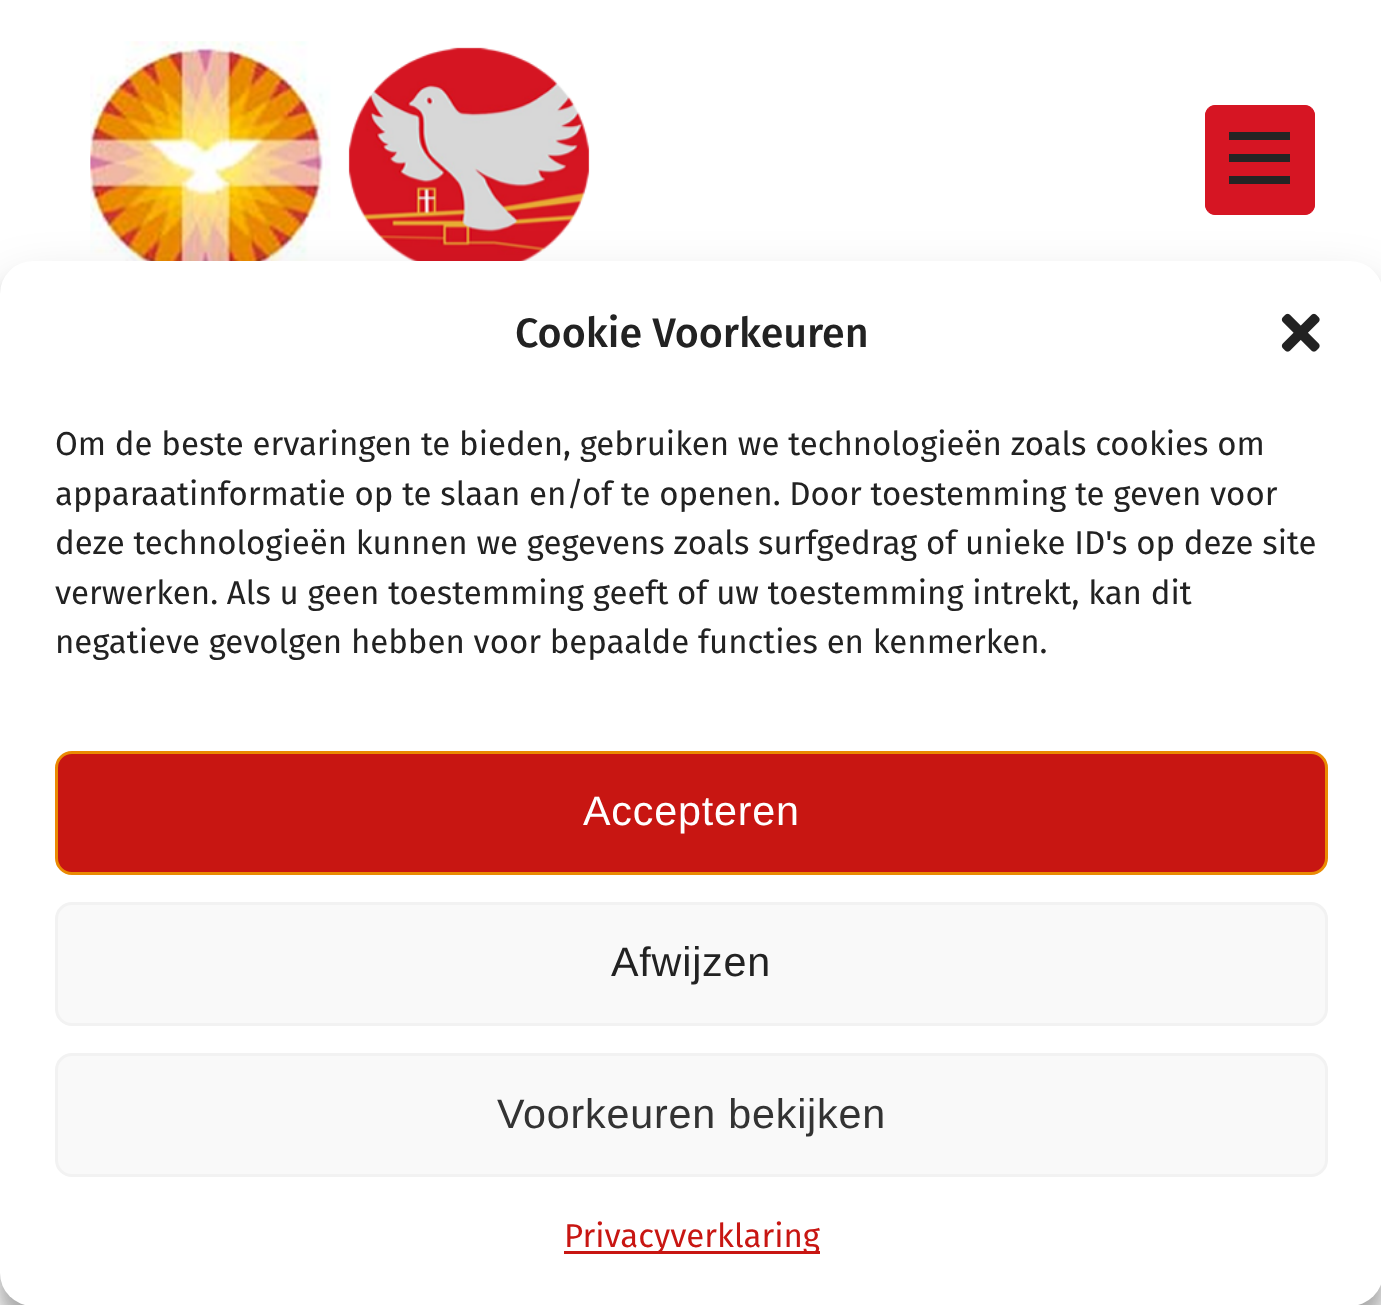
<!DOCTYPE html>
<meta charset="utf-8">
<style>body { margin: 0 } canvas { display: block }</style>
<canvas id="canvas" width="1381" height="1305"></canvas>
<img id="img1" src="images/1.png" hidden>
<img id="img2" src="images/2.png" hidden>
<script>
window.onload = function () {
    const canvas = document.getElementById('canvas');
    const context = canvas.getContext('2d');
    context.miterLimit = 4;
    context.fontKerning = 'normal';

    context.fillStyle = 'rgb(255, 255, 255)';
    context.fillRect(0, 0, 1381, 1305);
    context.drawImage(document.getElementById('img1'), 90, 41, 500, 220);
    context.fillStyle = 'rgb(214, 21, 35)';
    context.beginPath();
    context.roundRect(1205, 105, 110, 110, 11);
    context.fill();
    context.beginPath();
    context.moveTo(1205, 116);
    context.lineTo(1205, 204);
    context.bezierCurveTo(1205, 207, 1206, 210, 1208, 212);
    context.lineTo(1208, 108);
    context.bezierCurveTo(1206, 110, 1205, 113, 1205, 116);
    context.closePath();
    context.moveTo(1216, 105);
    context.bezierCurveTo(1213, 105, 1210, 106, 1208, 108);
    context.lineTo(1312, 108);
    context.bezierCurveTo(1310, 106, 1307, 105, 1304, 105);
    context.closePath();
    context.moveTo(1315, 116);
    context.bezierCurveTo(1315, 113, 1314, 110, 1312, 108);
    context.lineTo(1312, 212);
    context.bezierCurveTo(1314, 210, 1315, 207, 1315, 204);
    context.closePath();
    context.moveTo(1304, 215);
    context.bezierCurveTo(1307, 215, 1310, 214, 1312, 212);
    context.lineTo(1208, 212);
    context.bezierCurveTo(1210, 214, 1213, 215, 1216, 215);
    context.closePath();
    context.fill('evenodd');
    context.fillStyle = 'rgb(36, 36, 36)';
    context.fillRect(1229, 132, 61, 8);
    context.fillRect(1229, 154, 61, 8);
    context.fillRect(1229, 176, 61, 8);
    context.fillStyle = 'rgba(0, 0, 0, 0.23)';
    context.filter = 'blur(8px)';
    context.beginPath();
    context.roundRect(0, 278, 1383, 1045, 33);
    context.fill();
    context.filter = 'none';
    context.fillStyle = 'rgba(0, 0, 0, 0.19)';
    context.filter = 'blur(27.5px)';
    context.beginPath();
    context.roundRect(0, 289, 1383, 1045, 33);
    context.fill();
    context.filter = 'none';
    context.fillStyle = 'rgb(255, 255, 255)';
    context.beginPath();
    context.roundRect(0, 261, 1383, 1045, 33);
    context.fill();
    context.drawImage(document.getElementById('img2'), 1281, 313, 39, 39);
    context.fillStyle = 'rgb(200, 22, 18)';
    context.beginPath();
    context.roundRect(56.5, 752.5, 1270, 121, 15.5);
    context.fill();
    context.strokeStyle = 'rgb(234, 138, 2)';
    context.lineWidth = 3;
    context.stroke();
    context.fillStyle = 'rgb(249, 249, 249)';
    context.beginPath();
    context.roundRect(56.5, 903.5, 1270, 121, 15.5);
    context.fill();
    context.strokeStyle = 'rgb(242, 242, 242)';
    context.stroke();
    context.beginPath();
    context.roundRect(56.5, 1054.5, 1270, 121, 15.5);
    context.fill();
    context.stroke();
    context.fillStyle = 'rgb(200, 22, 18)';
    context.fillRect(564, 1251, 256, 3);
    context.font = '500 41.25px Fira Sans';
    context.fillStyle = 'rgb(34, 34, 34)';
    context.fillText('Cookie Voorkeuren', 515, 347);
    context.font = '33px Fira Sans';
    context.fillText('Om de beste ervaringen te bieden, gebruiken we technologieën zoals cookies om', 55, 455);
    context.fillText('apparaatinformatie op te slaan en/of te openen. Door toestemming te geven voor', 55, 505);
    context.fillText('deze technologieën kunnen we gegevens zoals surfgedrag of unieke ID\'s op deze site', 55, 554);
    context.fillText('verwerken. Als u geen toestemming geeft of uw toestemming intrekt, kan dit', 55, 604);
    context.fillText('negatieve gevolgen hebben voor bepaalde functies en kenmerken.', 55, 653);
    context.letterSpacing = '0.8px';
    context.font = '41.25px Liberation Sans';
    context.fillStyle = 'rgb(255, 255, 255)';
    context.fillText('Accepteren', 583, 825);
    context.fillStyle = 'rgb(34, 34, 34)';
    context.fillText('Afwijzen', 611, 976);
    context.fillStyle = 'rgb(51, 51, 51)';
    context.fillText('Voorkeuren bekijken', 497, 1128);
    context.letterSpacing = '0px';
    context.font = '33px Fira Sans';
    context.fillStyle = 'rgb(200, 22, 18)';
    context.fillText('Privacyverklaring', 564, 1247);
};
</script>
